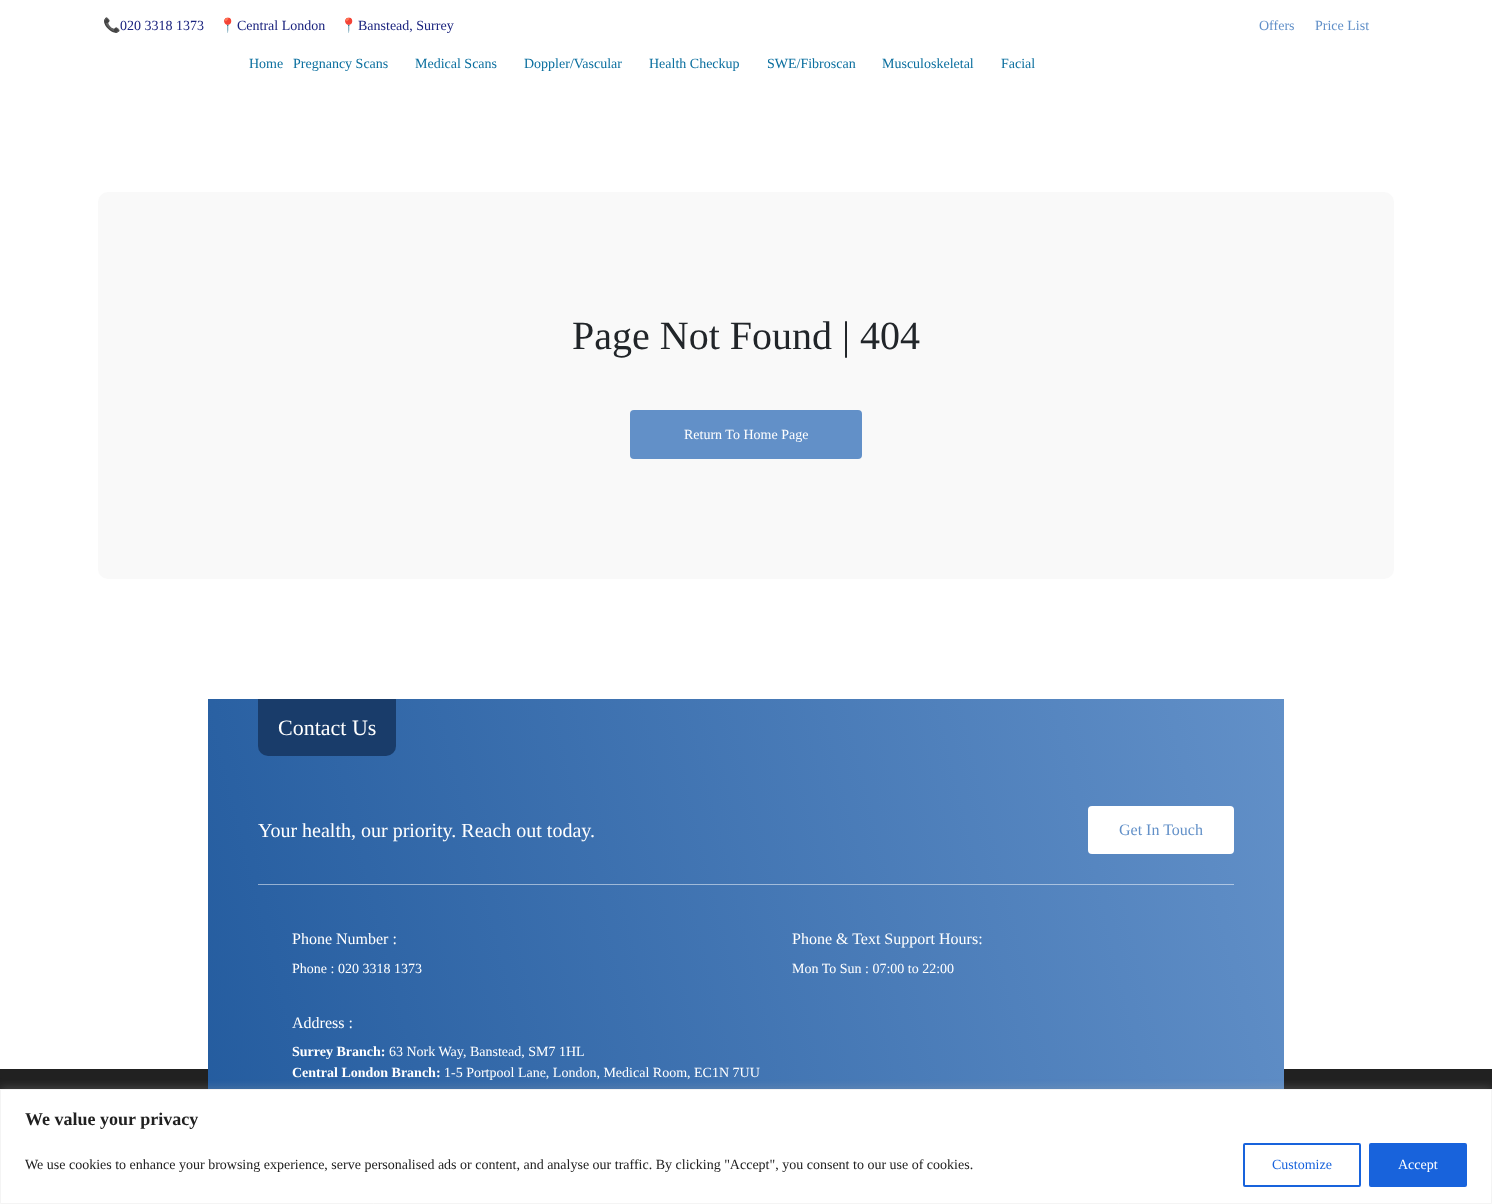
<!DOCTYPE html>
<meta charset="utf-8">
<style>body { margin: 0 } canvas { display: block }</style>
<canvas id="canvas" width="1492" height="1204"></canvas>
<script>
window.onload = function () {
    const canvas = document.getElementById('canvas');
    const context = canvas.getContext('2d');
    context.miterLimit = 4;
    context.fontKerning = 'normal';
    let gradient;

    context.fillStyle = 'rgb(255, 255, 255)';
    context.fillRect(0, 0, 1492, 1204);
    context.fillStyle = 'rgb(249, 249, 249)';
    context.beginPath();
    context.roundRect(98, 192, 1296, 387, 10);
    context.fill();
    context.fillStyle = 'rgb(98, 144, 200)';
    context.beginPath();
    context.roundRect(630, 410, 232, 49, 4);
    context.fill();
    context.fillStyle = 'rgb(33, 33, 33)';
    context.fillRect(0, 1069, 1492, 20);
    gradient = context.createLinearGradient(1305, 785, 187, 1063);
    gradient.addColorStop(0, 'rgb(98, 144, 200)');
    gradient.addColorStop(1, 'rgb(36, 92, 159)');
    context.fillStyle = gradient;
    context.fillRect(208, 699, 1076, 390);
    gradient = context.createLinearGradient(1305, 785, 187, 1063);
    gradient.addColorStop(0, 'rgb(177, 200, 228)');
    gradient.addColorStop(1, 'rgb(146, 174, 207)');
    context.fillStyle = gradient;
    context.fillRect(258, 884, 976, 1);
    context.fillStyle = 'rgb(25, 60, 106)';
    context.beginPath();
    context.roundRect(258, 699, 138, 57, [0, 0, 10, 10]);
    context.fill();
    context.fillStyle = 'rgb(255, 255, 255)';
    context.beginPath();
    context.roundRect(1088, 806, 146, 48, 4);
    context.fill();
    context.fillStyle = 'rgba(172, 171, 171, 0.3)';
    context.filter = 'blur(5px)';
    context.beginPath();
    context.rect(0, 1088, 1492, 115);
    context.fill();
    context.filter = 'none';
    context.fillStyle = 'rgb(255, 255, 255)';
    context.beginPath();
    context.rect(0.5, 1089.5, 1491, 114);
    context.fill();
    context.strokeStyle = 'rgb(244, 244, 244)';
    context.stroke();
    context.beginPath();
    context.roundRect(1244, 1144, 116, 42, 1);
    context.strokeStyle = 'rgb(24, 99, 220)';
    context.lineWidth = 2;
    context.stroke();
    context.fillStyle = 'rgb(24, 99, 220)';
    context.beginPath();
    context.roundRect(1370, 1144, 96, 42, 1);
    context.fill();
    context.stroke();
    context.font = '14px Noto Color Emoji';
    context.fillStyle = 'rgb(26, 35, 126)';
    context.fillText('📞', 103, 30);
    context.font = '14px Liberation Serif';
    context.fillText('020 3318 1373', 120, 30);
    context.font = '14px Noto Color Emoji';
    context.fillText('📍', 219, 30);
    context.font = '14px Liberation Serif';
    context.fillText('Central London', 237, 30);
    context.font = '14px Noto Color Emoji';
    context.fillText('📍', 340, 30);
    context.font = '14px Liberation Serif';
    context.fillText('Banstead, Surrey', 358, 30);
    context.fillStyle = 'rgb(98, 144, 200)';
    context.fillText('Offers', 1259, 30);
    context.fillText('Price List', 1315, 30);
    context.fillStyle = 'rgb(11, 111, 159)';
    context.fillText('Home', 249, 68);
    context.fillText('Pregnancy Scans', 293, 68);
    context.fillText('Medical Scans', 415, 68);
    context.fillText('Doppler/Vascular', 524, 68);
    context.fillText('Health Checkup', 649, 68);
    context.fillText('SWE/Fibroscan', 767, 68);
    context.fillText('Musculoskeletal', 882, 68);
    context.fillText('Facial', 1001, 68);
    context.font = '40px Liberation Serif';
    context.fillStyle = 'rgb(33, 37, 41)';
    context.fillText('Page Not Found | 404', 572, 349);
    context.font = '14px Liberation Serif';
    context.fillStyle = 'rgb(255, 255, 255)';
    context.fillText('Return To Home Page', 684, 439);
    context.font = '22px Liberation Serif';
    context.fillText('Contact Us', 278, 735);
    context.font = '20px Liberation Serif';
    context.fillText('Your health, our priority. Reach out today.', 258, 837);
    context.font = '16px Liberation Serif';
    context.fillStyle = 'rgb(98, 144, 200)';
    context.fillText('Get In Touch', 1119, 835);
    context.fillStyle = 'rgb(255, 255, 255)';
    context.fillText('Phone Number :', 292, 944);
    context.font = '14px Liberation Serif';
    context.fillText('Phone : 020 3318 1373', 292, 973);
    context.font = '16px Liberation Serif';
    context.fillText('Phone & Text Support Hours:', 792, 944);
    context.font = '14px Liberation Serif';
    context.fillText('Mon To Sun : 07:00 to 22:00', 792, 973);
    context.font = '16px Liberation Serif';
    context.fillText('Address :', 292, 1028);
    context.font = 'bold 14px Liberation Serif';
    context.fillText('Surrey Branch:', 292, 1056);
    context.font = '14px Liberation Serif';
    context.fillText('63 Nork Way, Banstead, SM7 1HL', 389, 1056);
    context.font = 'bold 14px Liberation Serif';
    context.fillText('Central London Branch:', 292, 1077);
    context.font = '14px Liberation Serif';
    context.fillText('1-5 Portpool Lane, London, Medical Room, EC1N 7UU', 444, 1077);
    context.font = 'bold 18px Liberation Serif';
    context.fillStyle = 'rgb(33, 33, 33)';
    context.fillText('We value your privacy', 25, 1125);
    context.font = '14px Liberation Serif';
    context.fillText('We use cookies to enhance your browsing experience, serve personalised ads or content, and analyse our traffic. By clicking "Accept", you consent to our use of cookies.', 25, 1169);
    context.fillStyle = 'rgb(24, 99, 220)';
    context.fillText('Customize', 1272, 1169);
    context.fillStyle = 'rgb(255, 255, 255)';
    context.fillText('Accept', 1398, 1169);
};
</script>
